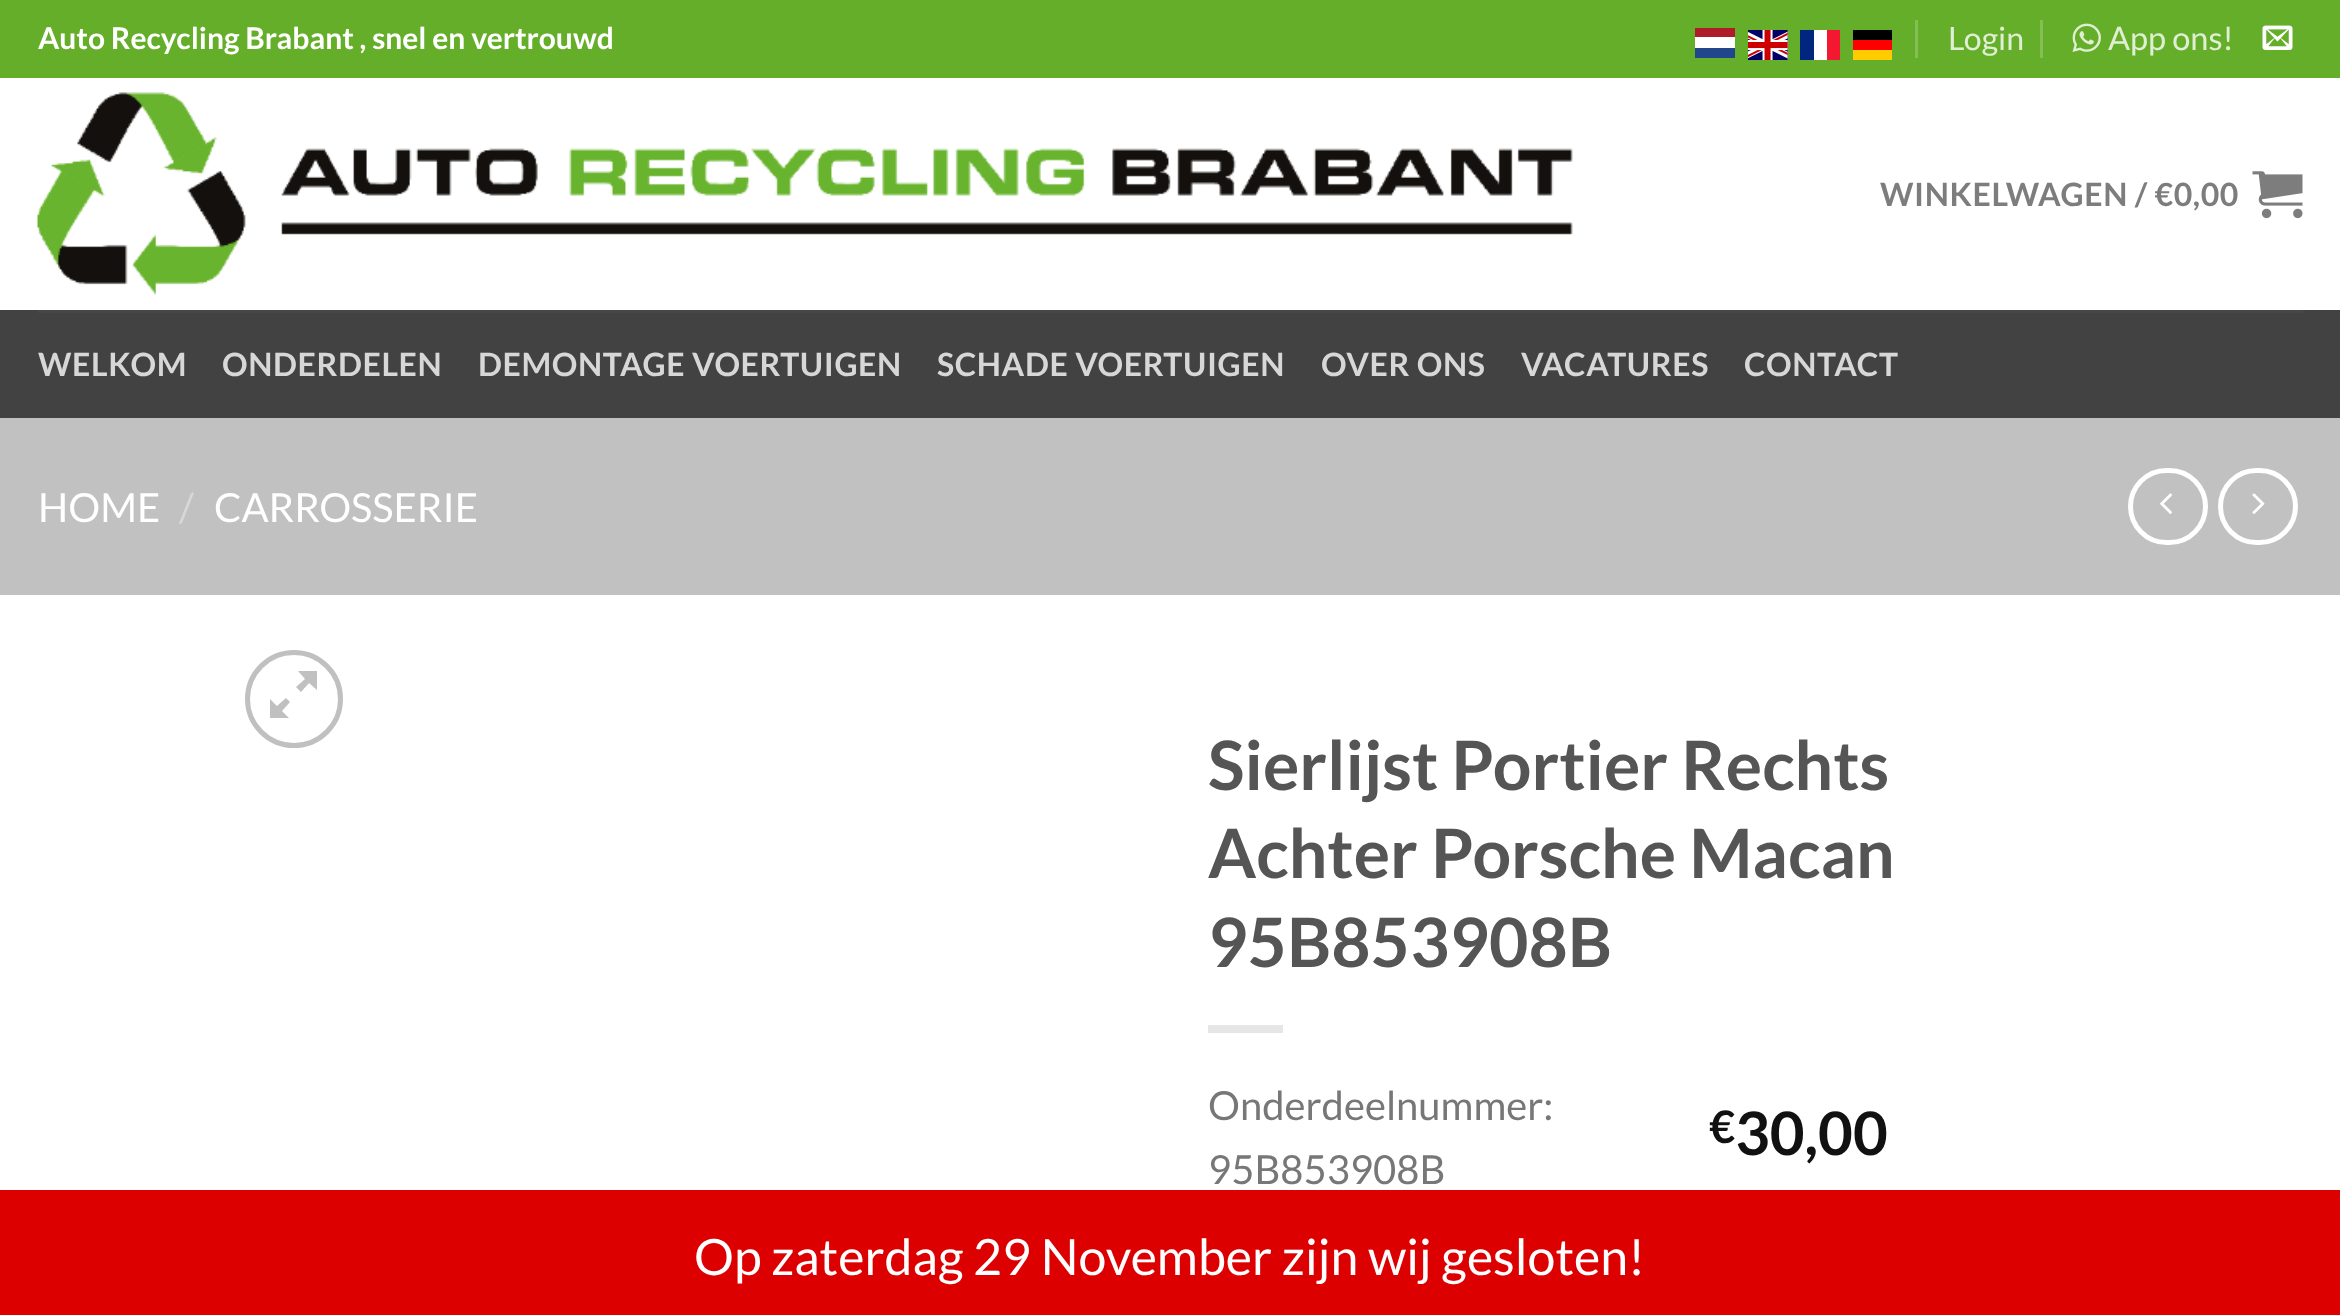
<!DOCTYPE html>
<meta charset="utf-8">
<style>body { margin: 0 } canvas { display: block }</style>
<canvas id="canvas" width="2340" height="1315"></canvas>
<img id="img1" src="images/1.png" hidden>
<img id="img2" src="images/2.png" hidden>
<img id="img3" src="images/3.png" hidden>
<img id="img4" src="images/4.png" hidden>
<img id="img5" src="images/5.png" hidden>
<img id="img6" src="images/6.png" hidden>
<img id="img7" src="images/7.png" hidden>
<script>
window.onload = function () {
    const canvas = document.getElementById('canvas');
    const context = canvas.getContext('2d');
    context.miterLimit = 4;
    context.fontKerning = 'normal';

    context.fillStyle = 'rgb(255, 255, 255)';
    context.fillRect(0, 0, 2340, 1315);
    context.fillStyle = 'rgb(101, 174, 41)';
    context.fillRect(0, 0, 2340, 78);
    context.fillStyle = 'rgb(255, 255, 255)';
    context.fillRect(1695, 37, 40, 11);
    context.fillStyle = 'rgb(33, 70, 139)';
    context.fillRect(1695, 48, 40, 10);
    context.fillStyle = 'rgb(174, 28, 40)';
    context.fillRect(1695, 28, 40, 9);
    context.drawImage(document.getElementById('img1'), 1748, 30, 40, 30);
    context.fillStyle = 'rgb(255, 255, 255)';
    context.fillRect(1814, 30, 13, 30);
    context.fillStyle = 'rgb(0, 38, 127)';
    context.fillRect(1800, 30, 14, 30);
    context.fillStyle = 'rgb(243, 24, 48)';
    context.fillRect(1827, 30, 13, 30);
    context.fillStyle = 'rgb(255, 204, 0)';
    context.fillRect(1853, 50, 39, 10);
    context.fillStyle = 'rgb(0, 0, 0)';
    context.fillRect(1853, 30, 39, 10);
    context.fillStyle = 'rgb(255, 0, 0)';
    context.fillRect(1853, 40, 39, 10);
    context.fillStyle = 'rgb(132, 190, 84)';
    context.fillRect(1915, 20, 3, 38);
    context.fillRect(2040, 20, 3, 38);
    context.drawImage(document.getElementById('img2'), 2072, 23, 29, 29);
    context.drawImage(document.getElementById('img3'), 2262, 25, 31, 25);
    context.drawImage(document.getElementById('img4'), 37, 92, 1536, 203);
    context.drawImage(document.getElementById('img5'), 2252, 171, 51, 48);
    context.fillStyle = 'rgb(66, 66, 66)';
    context.fillRect(0, 310, 2340, 108);
    context.fillStyle = 'rgb(71, 71, 71)';
    context.fillRect(38, 310, 2265, 3);
    context.fillStyle = 'rgb(193, 193, 193)';
    context.fillRect(0, 418, 2340, 177);
    context.beginPath();
    context.roundRect(2130.5, 470.5, 75, 72, 36);
    context.strokeStyle = 'rgb(255, 255, 255)';
    context.lineWidth = 5;
    context.stroke();
    context.drawImage(document.getElementById('img6'), 2160, 493, 12, 21);
    context.beginPath();
    context.roundRect(2220.5, 470.5, 75, 72, 36);
    context.stroke();
    context.drawImage(document.getElementById('img7'), 2252, 493, 13, 21);
    context.beginPath();
    context.arc(294, 699, 46.5, 0, 2 * Math.PI);
    context.strokeStyle = 'rgb(192, 192, 192)';
    context.stroke();
    context.fillStyle = 'rgb(192, 192, 192)';
    context.beginPath();
    context.moveTo(317, 671);
    context.lineTo(317, 690);
    context.lineTo(309, 683);
    context.lineTo(301, 692);
    context.lineTo(296, 687);
    context.lineTo(305, 679);
    context.lineTo(298, 671);
    context.closePath();
    context.moveTo(290, 702);
    context.lineTo(282, 711);
    context.lineTo(289, 718);
    context.lineTo(270, 718);
    context.lineTo(270, 699);
    context.lineTo(277, 706);
    context.lineTo(286, 698);
    context.closePath();
    context.fill();
    context.fillStyle = 'rgb(230, 230, 230)';
    context.fillRect(1208, 1025, 75, 8);
    context.fillStyle = 'rgb(221, 0, 0)';
    context.fillRect(0, 1190, 2340, 125);
    context.font = 'bold 30px Lato';
    context.fillStyle = 'rgb(255, 255, 255)';
    context.fillText('Auto Recycling Brabant , snel en vertrouwd', 38, 49);
    context.font = '32px Lato';
    context.fillStyle = 'rgb(224, 239, 212)';
    context.fillText('Login', 1948, 50);
    context.font = '32.5px Lato';
    context.fillText('App ons!', 2108, 50);
    context.letterSpacing = '0.6px';
    context.font = 'bold 32px Lato';
    context.fillStyle = 'rgb(125, 125, 125)';
    context.fillText('WINKELWAGEN / €0,00', 1880, 206);
    context.fillStyle = 'rgb(215, 215, 215)';
    context.fillText('WELKOM', 38, 376);
    context.fillText('ONDERDELEN', 222, 376);
    context.fillText('DEMONTAGE VOERTUIGEN', 478, 376);
    context.fillText('SCHADE VOERTUIGEN', 937, 376);
    context.fillText('OVER ONS', 1321, 376);
    context.fillText('VACATURES', 1521, 376);
    context.fillText('CONTACT', 1744, 376);
    context.letterSpacing = '0px';
    context.font = '40px Lato';
    context.fillStyle = 'rgb(255, 255, 255)';
    context.fillText('HOME', 38, 522);
    context.fillStyle = 'rgb(215, 215, 215)';
    context.fillText('/', 179, 522);
    context.fillStyle = 'rgb(255, 255, 255)';
    context.fillText('CARROSSERIE', 214, 522);
    context.font = 'bold 68px Lato';
    context.fillStyle = 'rgb(85, 85, 85)';
    context.fillText('Sierlijst Portier Rechts', 1208, 790);
    context.fillText('Achter Porsche Macan', 1208, 878);
    context.fillText('95B853908B', 1208, 967);
    context.font = '40px Lato';
    context.fillStyle = 'rgb(119, 119, 119)';
    context.fillText('Onderdeelnummer:', 1208, 1120);
    context.fillText('95B853908B', 1208, 1184);
    context.font = 'bold 45px Lato';
    context.fillStyle = 'rgb(17, 17, 17)';
    context.fillText('€', 1709, 1143);
    context.font = 'bold 60px Lato';
    context.fillText('30,00', 1735, 1155);
    context.font = '50px Lato';
    context.fillStyle = 'rgb(255, 255, 255)';
    context.fillText('Op zaterdag 29 November zijn wij gesloten!', 694, 1275);
};
</script>
